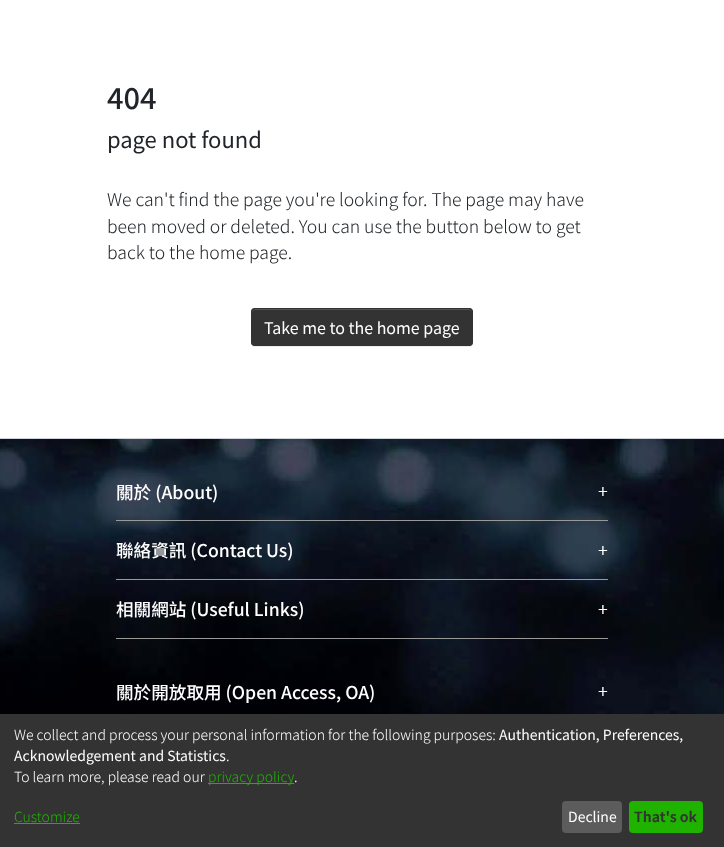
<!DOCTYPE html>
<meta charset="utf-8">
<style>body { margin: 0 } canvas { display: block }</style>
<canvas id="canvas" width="724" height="847"></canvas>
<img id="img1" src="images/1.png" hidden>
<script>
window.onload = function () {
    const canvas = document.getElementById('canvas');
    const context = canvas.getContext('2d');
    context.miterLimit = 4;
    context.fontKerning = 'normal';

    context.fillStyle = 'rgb(255, 255, 255)';
    context.fillRect(0, 0, 724, 847);
    context.fillStyle = 'rgba(0, 0, 0, 0.07)';
    context.filter = 'blur(0.5px)';
    context.beginPath();
    context.roundRect(251, 309, 222, 38, 4);
    context.fill();
    context.filter = 'none';
    context.fillStyle = 'rgb(51, 51, 51)';
    context.beginPath();
    context.roundRect(251, 308, 222, 38, 4);
    context.fill();
    context.fillStyle = 'rgb(82, 82, 82)';
    context.beginPath();
    context.moveTo(255, 310);
    context.lineTo(469, 310);
    context.bezierCurveTo(471, 310, 472, 311, 472, 313);
    context.lineTo(472, 312);
    context.bezierCurveTo(472, 310, 471, 309, 469, 309);
    context.lineTo(255, 309);
    context.bezierCurveTo(253, 309, 252, 310, 252, 312);
    context.lineTo(252, 313);
    context.bezierCurveTo(252, 311, 253, 310, 255, 310);
    context.closePath();
    context.fill();
    context.beginPath();
    context.roundRect(251.5, 308.5, 221, 37, 3.5);
    context.strokeStyle = 'rgb(51, 51, 51)';
    context.stroke();
    context.fillStyle = 'rgb(206, 212, 218)';
    context.fillRect(0, 438, 724, 1);
    context.drawImage(document.getElementById('img1'), 0, 439, 724, 275);
    context.fillStyle = 'rgb(153, 153, 153)';
    context.fillRect(116, 520, 492, 1);
    context.fillRect(116, 579, 492, 1);
    context.fillRect(116, 638, 492, 1);
    context.fillStyle = 'rgb(51, 51, 51)';
    context.fillRect(0, 714, 724, 133);
    context.fillStyle = 'rgb(31, 179, 0)';
    context.fillRect(208, 783, 86, 1);
    context.fillRect(14, 823, 66, 1);
    context.fillStyle = 'rgb(92, 92, 92)';
    context.beginPath();
    context.roundRect(562, 801, 60, 32, 4);
    context.fill();
    context.fillStyle = 'rgb(31, 179, 0)';
    context.beginPath();
    context.roundRect(629, 801, 74, 32, 4);
    context.fill();
    context.font = '500 29px Noto Sans TC';
    context.fillStyle = 'rgb(33, 37, 41)';
    context.fillText('404', 107, 109);
    context.font = '22px Noto Sans TC';
    context.fillText('page not found', 107, 148);
    context.font = '300 17.6px Noto Sans TC';
    context.fillText('We can\'t find the page you\'re looking for. The page may have', 107, 206);
    context.fillText('been moved or deleted. You can use the button below to get', 107, 233);
    context.fillText('back to the home page.', 107, 259);
    context.font = '16px Noto Sans TC';
    context.fillStyle = 'rgb(255, 255, 255)';
    context.fillText('Take me to the home page', 264, 334);
    context.font = '500 17.6px Noto Sans TC';
    context.fillText('關於 (About)', 116, 499);
    context.font = '17.6px Noto Sans TC';
    context.fillText('+', 598, 498);
    context.font = '500 17.6px Noto Sans TC';
    context.fillText('聯絡資訊 (Contact Us)', 116, 557);
    context.font = '17.6px Noto Sans TC';
    context.fillText('+', 598, 557);
    context.font = '500 17.6px Noto Sans TC';
    context.fillText('相關網站 (Useful Links)', 116, 616);
    context.font = '17.6px Noto Sans TC';
    context.fillText('+', 598, 616);
    context.font = '500 17.6px Noto Sans TC';
    context.fillText('關於開放取用 (Open Access, OA)', 116, 699);
    context.font = '17.6px Noto Sans TC';
    context.fillText('+', 598, 698);
    context.font = '300 14px Noto Sans TC';
    context.fillText('We collect and process your personal information for the following purposes:', 14, 740);
    context.font = '14px Noto Sans TC';
    context.fillText('Authentication, Preferences,', 499, 740);
    context.fillText('Acknowledgement and Statistics', 14, 761);
    context.font = '300 14px Noto Sans TC';
    context.fillText('.', 226, 761);
    context.fillText('To learn more, please read our', 14, 782);
    context.fillStyle = 'rgb(31, 179, 0)';
    context.fillText('privacy policy', 208, 782);
    context.fillStyle = 'rgb(255, 255, 255)';
    context.fillText('.', 294, 782);
    context.fillStyle = 'rgb(31, 179, 0)';
    context.fillText('Customize', 14, 822);
    context.font = '14px Noto Sans TC';
    context.fillStyle = 'rgb(255, 255, 255)';
    context.fillText('Decline', 568, 822);
    context.font = 'bold 14px Noto Sans TC';
    context.fillStyle = 'rgb(51, 51, 51)';
    context.fillText('That\'s ok', 634, 822);
};
</script>
